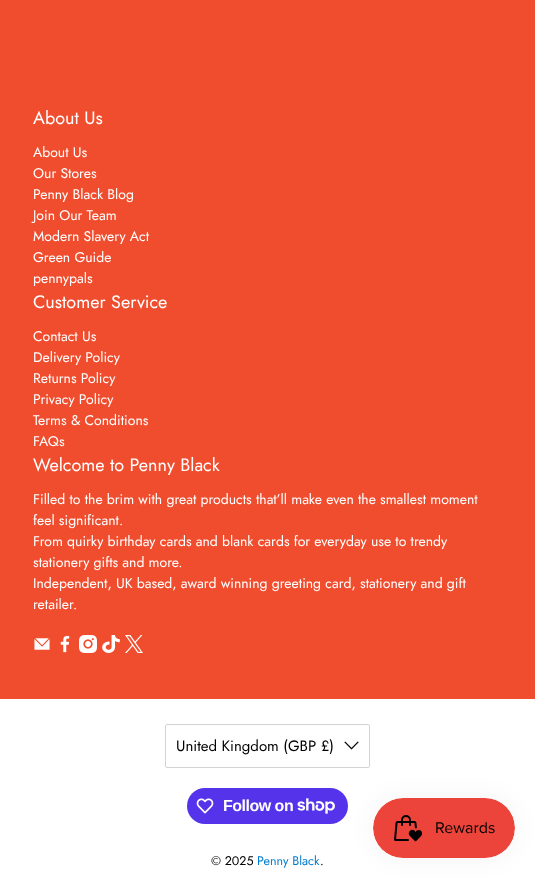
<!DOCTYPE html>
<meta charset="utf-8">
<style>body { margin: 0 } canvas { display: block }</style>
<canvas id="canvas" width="535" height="878"></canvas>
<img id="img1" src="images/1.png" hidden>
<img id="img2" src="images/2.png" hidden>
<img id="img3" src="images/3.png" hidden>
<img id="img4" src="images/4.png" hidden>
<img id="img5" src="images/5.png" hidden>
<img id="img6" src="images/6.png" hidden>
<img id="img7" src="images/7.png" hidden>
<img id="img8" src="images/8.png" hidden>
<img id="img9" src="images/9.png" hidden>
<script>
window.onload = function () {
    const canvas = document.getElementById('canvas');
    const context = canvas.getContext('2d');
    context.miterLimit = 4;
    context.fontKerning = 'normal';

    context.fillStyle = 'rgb(255, 255, 255)';
    context.fillRect(0, 0, 535, 878);
    context.fillStyle = 'rgb(240, 77, 46)';
    context.fillRect(0, 0, 535, 699);
    context.drawImage(document.getElementById('img1'), 34, 638, 16, 12);
    context.drawImage(document.getElementById('img2'), 60, 635, 10, 18);
    context.drawImage(document.getElementById('img3'), 79, 635, 18, 18);
    context.drawImage(document.getElementById('img4'), 102, 635, 18, 18);
    context.drawImage(document.getElementById('img5'), 125, 635, 18, 18);
    context.beginPath();
    context.roundRect(165.5, 724.5, 204, 43, 1.5);
    context.strokeStyle = 'rgb(211, 211, 211)';
    context.stroke();
    context.fillStyle = 'rgb(255, 255, 255)';
    context.beginPath();
    context.roundRect(166, 725, 203, 42, 2);
    context.fill();
    context.drawImage(document.getElementById('img6'), 344, 741, 15, 9);
    context.fillStyle = 'rgb(84, 51, 235)';
    context.beginPath();
    context.roundRect(187, 788, 161, 36, 18);
    context.fill();
    context.drawImage(document.getElementById('img7'), 196, 798, 18, 16);
    context.drawImage(document.getElementById('img8'), 297, 798, 38, 16);
    context.fillStyle = 'rgba(0, 0, 0, 0.05)';
    context.filter = 'blur(12.5px)';
    context.beginPath();
    context.roundRect(373, 798, 142, 60, 30);
    context.fill();
    context.filter = 'none';
    context.drawImage(document.getElementById('img9'), 373, 798, 142, 60);
    context.font = '18px Jost';
    context.fillStyle = 'rgb(255, 255, 255)';
    context.fillText('About Us', 33, 124);
    context.font = '14px Jost';
    context.fillText('About Us', 33, 157);
    context.fillText('Our Stores', 33, 178);
    context.fillText('Penny Black Blog', 33, 199);
    context.fillText('Join Our Team', 33, 220);
    context.fillText('Modern Slavery Act', 33, 241);
    context.fillText('Green Guide', 33, 262);
    context.fillText('pennypals', 33, 283);
    context.font = '18px Jost';
    context.fillText('Customer Service', 33, 308);
    context.font = '14px Jost';
    context.fillText('Contact Us', 33, 341);
    context.fillText('Delivery Policy', 33, 362);
    context.fillText('Returns Policy', 33, 383);
    context.fillText('Privacy Policy', 33, 404);
    context.fillText('Terms & Conditions', 33, 425);
    context.fillText('FAQs', 33, 446);
    context.font = '18px Jost';
    context.fillText('Welcome to Penny Black', 33, 471);
    context.font = '14px Jost';
    context.fillText('Filled to the brim with great products that’ll make even the smallest moment', 33, 504);
    context.fillText('feel significant.', 33, 525);
    context.fillText('From quirky birthday cards and blank cards for everyday use to trendy', 33, 546);
    context.fillText('stationery gifts and more.', 33, 567);
    context.fillText('Independent, UK based, award winning greeting card, stationery and gift', 33, 588);
    context.fillText('retailer.', 33, 609);
    context.font = '15px Jost';
    context.fillStyle = 'rgb(0, 0, 0)';
    context.fillText('United Kingdom (GBP £)', 176, 751);
    context.letterSpacing = '-0.5px';
    context.font = 'bold 16px Liberation Sans';
    context.fillStyle = 'rgb(255, 255, 255)';
    context.fillText('Follow on', 223, 811);
    context.letterSpacing = '0px';
    context.font = '12.5px Jost';
    context.fillStyle = 'rgb(0, 0, 0)';
    context.fillText('© 2025', 211, 865);
    context.fillStyle = 'rgb(0, 122, 206)';
    context.fillText('Penny Black', 257, 865);
    context.fillStyle = 'rgb(0, 0, 0)';
    context.fillText('.', 320, 865);
};
</script>
